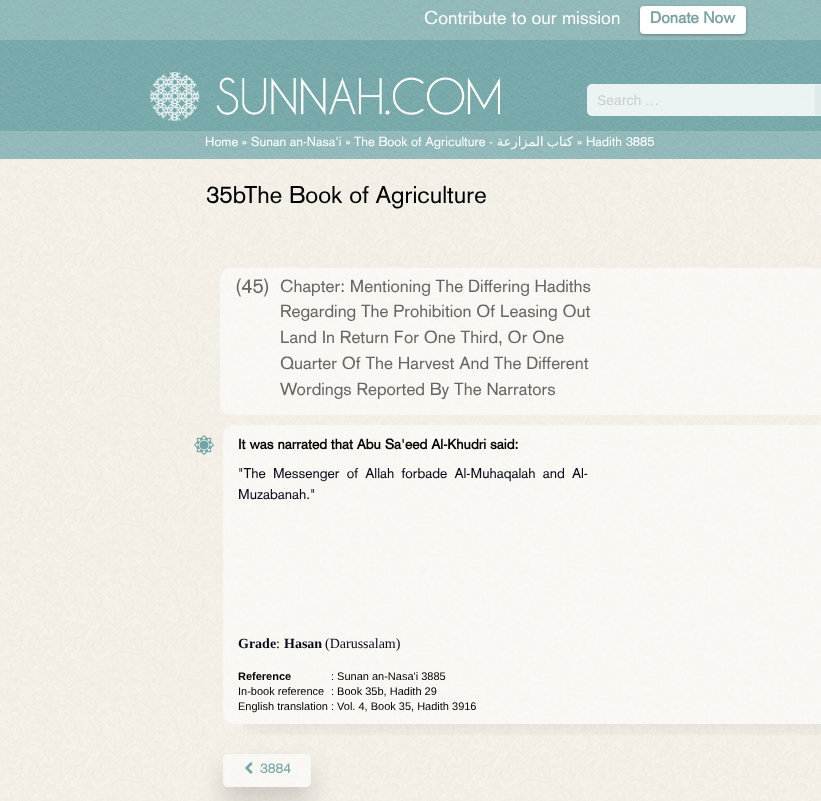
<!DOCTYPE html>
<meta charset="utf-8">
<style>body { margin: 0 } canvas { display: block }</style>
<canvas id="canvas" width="821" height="801"></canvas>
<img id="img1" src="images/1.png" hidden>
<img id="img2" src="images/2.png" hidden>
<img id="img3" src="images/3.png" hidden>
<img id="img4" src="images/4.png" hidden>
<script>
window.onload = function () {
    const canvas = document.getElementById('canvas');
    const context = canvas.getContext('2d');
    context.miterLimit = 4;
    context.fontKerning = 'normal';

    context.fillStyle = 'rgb(255, 255, 255)';
    context.fillRect(0, 0, 821, 801);
    context.drawImage(document.getElementById('img1'), 0, 159, 821, 642);
    context.drawImage(document.getElementById('img2'), 0, 0, 821, 159);
    context.fillStyle = 'rgba(251, 250, 248, 0.2)';
    context.fillRect(0, 0, 821, 40);
    context.fillStyle = 'rgba(0, 0, 0, 0.3)';
    context.filter = 'blur(1.5px)';
    context.beginPath();
    context.roundRect(640, 7, 106, 28, 4);
    context.fill();
    context.filter = 'none';
    context.fillStyle = 'rgb(255, 255, 255)';
    context.beginPath();
    context.roundRect(640, 6, 106, 28, 4);
    context.fill();
    context.drawImage(document.getElementById('img3'), 150, 72, 350, 49);
    context.fillStyle = 'rgba(255, 255, 255, 0.85)';
    context.beginPath();
    context.roundRect(587, 84, 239, 32, 5);
    context.fill();
    context.fillStyle = 'rgb(222, 235, 234)';
    context.fillRect(815, 85, 6, 30);
    context.fillStyle = 'rgba(251, 250, 248, 0.2)';
    context.fillRect(0, 131, 821, 28);
    context.fillStyle = 'rgba(255, 255, 255, 0.5)';
    context.beginPath();
    context.roundRect(220, 268, 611, 147, 10);
    context.fill();
    context.save();
    context.beginPath();
    context.rect(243, 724, 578, 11);
    context.clip();
    context.fillStyle = 'rgba(0, 0, 0, 0.09)';
    context.filter = 'blur(14px)';
    context.beginPath();
    context.rect(244, 467, 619, 257);
    context.fill();
    context.filter = 'none';
    context.restore();
    context.beginPath();
    context.roundRect(223, 425, 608, 299, 10);
    context.fill();
    context.drawImage(document.getElementById('img4'), 194, 435, 20, 20);
    context.save();
    context.beginPath();
    context.moveTo(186, 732);
    context.lineTo(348, 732);
    context.lineTo(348, 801);
    context.lineTo(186, 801);
    context.closePath();
    context.moveTo(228, 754);
    context.lineTo(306, 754);
    context.bezierCurveTo(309, 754, 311, 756, 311, 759);
    context.lineTo(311, 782);
    context.bezierCurveTo(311, 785, 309, 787, 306, 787);
    context.lineTo(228, 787);
    context.bezierCurveTo(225, 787, 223, 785, 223, 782);
    context.lineTo(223, 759);
    context.bezierCurveTo(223, 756, 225, 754, 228, 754);
    context.closePath();
    context.clip('evenodd');
    context.fillStyle = 'rgba(0, 0, 0, 0.16)';
    context.filter = 'blur(12px)';
    context.beginPath();
    context.roundRect(223, 769, 88, 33, 5);
    context.fill();
    context.filter = 'none';
    context.restore();
    context.beginPath();
    context.roundRect(223, 754, 88, 33, 5);
    context.fill();
    context.font = '18.25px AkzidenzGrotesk';
    context.fillStyle = 'rgb(255, 255, 255)';
    context.fillText('Contribute to our mission', 424, 24);
    context.font = 'bold 16px AkzidenzGrotesk';
    context.fillStyle = 'rgb(117, 161, 161)';
    context.fillText('Donate Now', 650, 23);
    context.font = '14px Liberation Sans';
    context.fillStyle = 'rgb(204, 204, 204)';
    context.fillText('Search …', 597, 105);
    context.font = '13px AkzidenzGrotesk';
    context.fillStyle = 'rgb(255, 255, 255)';
    context.fillText('Home » Sunan an-Nasa\'i » The Book of Agriculture -', 205, 146);
    context.wordSpacing = '-1px';
    context.direction = 'rtl';
    context.font = '13px DejaVu Sans';
    context.fillText('كتاب المزارعة', 573, 146);
    context.wordSpacing = '0px';
    context.direction = 'ltr';
    context.font = '13px AkzidenzGrotesk';
    context.fillText('» Hadith 3885', 577, 146);
    context.font = '24px AkzidenzGrotesk';
    context.fillStyle = 'rgb(0, 0, 0)';
    context.fillText('35b', 206, 203);
    context.fillText('The Book of Agriculture', 244, 203);
    context.font = '20px AkzidenzGrotesk';
    context.fillStyle = 'rgb(102, 102, 102)';
    context.fillText('(45)', 235, 293);
    context.font = '17.3px AkzidenzGrotesk';
    context.fillText('Chapter: Mentioning The Differing Hadiths', 280, 292);
    context.fillText('Regarding The Prohibition Of Leasing Out', 280, 317);
    context.fillText('Land In Return For One Third, Or One', 280, 343);
    context.fillText('Quarter Of The Harvest And The Different', 280, 369);
    context.fillText('Wordings Reported By The Narrators', 280, 395);
    context.font = 'bold 14px AkzidenzGrotesk';
    context.fillStyle = 'rgb(0, 0, 0)';
    context.fillText('It was narrated that Abu Sa\'eed Al-Khudri said:', 238, 449);
    context.wordSpacing = '3.25px';
    context.font = '14px AkzidenzGrotesk';
    context.fillStyle = 'rgb(8, 8, 26)';
    context.fillText('"The Messenger of Allah forbade Al-Muhaqalah and Al-', 238, 478);
    context.wordSpacing = '0px';
    context.fillText('Muzabanah."', 238, 499);
    context.font = 'bold 14px Liberation Serif';
    context.fillText('Grade', 238, 648);
    context.font = '14px Liberation Serif';
    context.fillText(':', 276, 648);
    context.font = 'bold 14px Liberation Serif';
    context.fillText('Hasan', 284, 648);
    context.font = '14px Liberation Serif';
    context.fillText('(Darussalam)', 325, 648);
    context.font = 'bold 11px Liberation Sans';
    context.fillStyle = 'rgb(0, 0, 0)';
    context.fillText('Reference', 238, 680);
    context.font = '11px Liberation Sans';
    context.fillText(': Sunan an-Nasa\'i 3885', 331, 680);
    context.fillText('In-book reference', 238, 695);
    context.fillText(': Book 35b, Hadith 29', 331, 695);
    context.fillText('English translation : Vol. 4, Book 35, Hadith 3916', 238, 710);
    context.font = '13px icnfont';
    context.fillStyle = 'rgb(117, 167, 168)';
    context.fillText('<', 245, 773);
    context.font = '14px AkzidenzGrotesk';
    context.fillText('3884', 260, 773);
};
</script>
